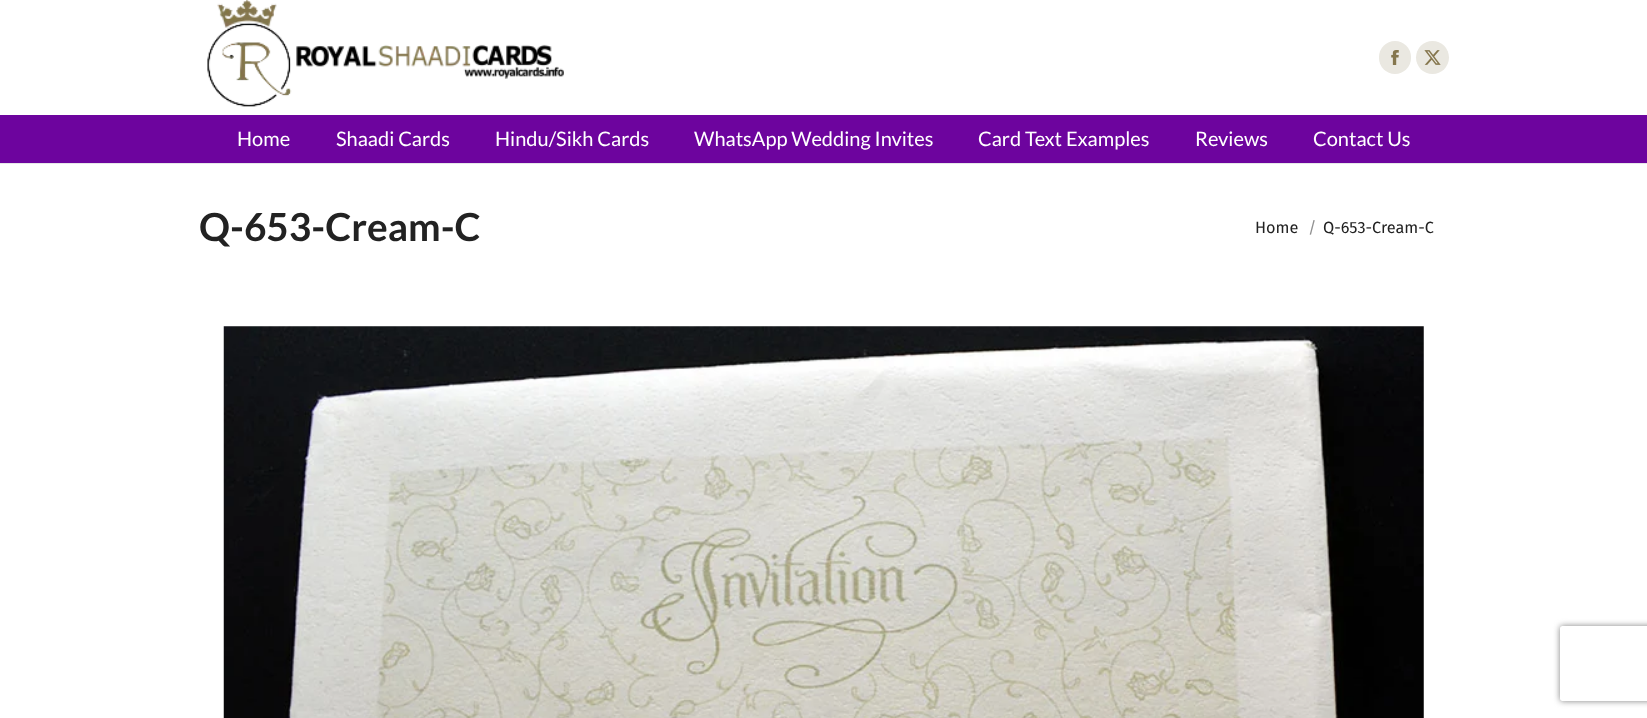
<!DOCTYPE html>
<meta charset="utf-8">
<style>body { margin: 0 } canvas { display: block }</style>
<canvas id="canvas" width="1647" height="718"></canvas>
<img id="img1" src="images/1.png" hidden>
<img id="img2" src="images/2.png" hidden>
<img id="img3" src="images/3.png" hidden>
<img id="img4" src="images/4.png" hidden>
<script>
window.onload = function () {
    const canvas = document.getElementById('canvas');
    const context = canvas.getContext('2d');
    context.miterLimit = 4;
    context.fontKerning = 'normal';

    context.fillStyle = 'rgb(255, 255, 255)';
    context.fillRect(0, 0, 1647, 718);
    context.fillStyle = 'rgb(230, 231, 233)';
    context.fillRect(0, 163, 1647, 1);
    context.drawImage(document.getElementById('img1'), 207, 0, 357, 107);
    context.fillStyle = 'rgb(234, 232, 225)';
    context.beginPath();
    context.roundRect(1379, 41, 32, 33, 16);
    context.fill();
    context.drawImage(document.getElementById('img2'), 1391, 50, 8, 15);
    context.beginPath();
    context.arc(1432.5, 57.5, 16.5, 0, 2 * Math.PI);
    context.fill();
    context.drawImage(document.getElementById('img3'), 1424, 50, 17, 15);
    context.fillStyle = 'rgb(109, 4, 158)';
    context.fillRect(0, 115, 1647, 48);
    context.drawImage(document.getElementById('img4'), 223, 326, 1201, 392);
    context.save();
    context.beginPath();
    context.moveTo(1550, 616);
    context.lineTo(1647, 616);
    context.lineTo(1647, 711);
    context.lineTo(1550, 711);
    context.closePath();
    context.moveTo(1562.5, 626);
    context.lineTo(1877.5, 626);
    context.bezierCurveTo(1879, 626, 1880, 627, 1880, 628.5);
    context.lineTo(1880, 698.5);
    context.bezierCurveTo(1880, 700, 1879, 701, 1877.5, 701);
    context.lineTo(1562.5, 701);
    context.bezierCurveTo(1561, 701, 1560, 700, 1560, 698.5);
    context.lineTo(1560, 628.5);
    context.bezierCurveTo(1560, 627, 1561, 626, 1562.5, 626);
    context.closePath();
    context.clip('evenodd');
    context.fillStyle = 'rgb(128, 128, 128)';
    context.filter = 'blur(3px)';
    context.beginPath();
    context.roundRect(1560, 626, 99, 75, 2.5);
    context.fill();
    context.filter = 'none';
    context.restore();
    context.font = '20px Lato';
    context.fillStyle = 'rgb(255, 255, 255)';
    context.fillText('Home', 237, 146);
    context.fillText('Shaadi Cards', 336, 146);
    context.fillText('Hindu/Sikh Cards', 495, 146);
    context.fillText('WhatsApp Wedding Invites', 694, 146);
    context.fillText('Card Text Examples', 978, 146);
    context.fillText('Reviews', 1195, 146);
    context.fillText('Contact Us', 1313, 146);
    context.font = 'bold 38.75px Lato';
    context.fillStyle = 'rgb(34, 34, 34)';
    context.fillText('Q-653-Cream-C', 199, 241);
    context.font = '16.25px Fira Sans';
    context.fillText('Home', 1255, 233);
    context.fillStyle = 'rgb(145, 145, 145)';
    context.fillText('/', 1308, 233);
    context.fillStyle = 'rgb(34, 34, 34)';
    context.fillText('Q-653-Cream-C', 1323, 233);
};
</script>
